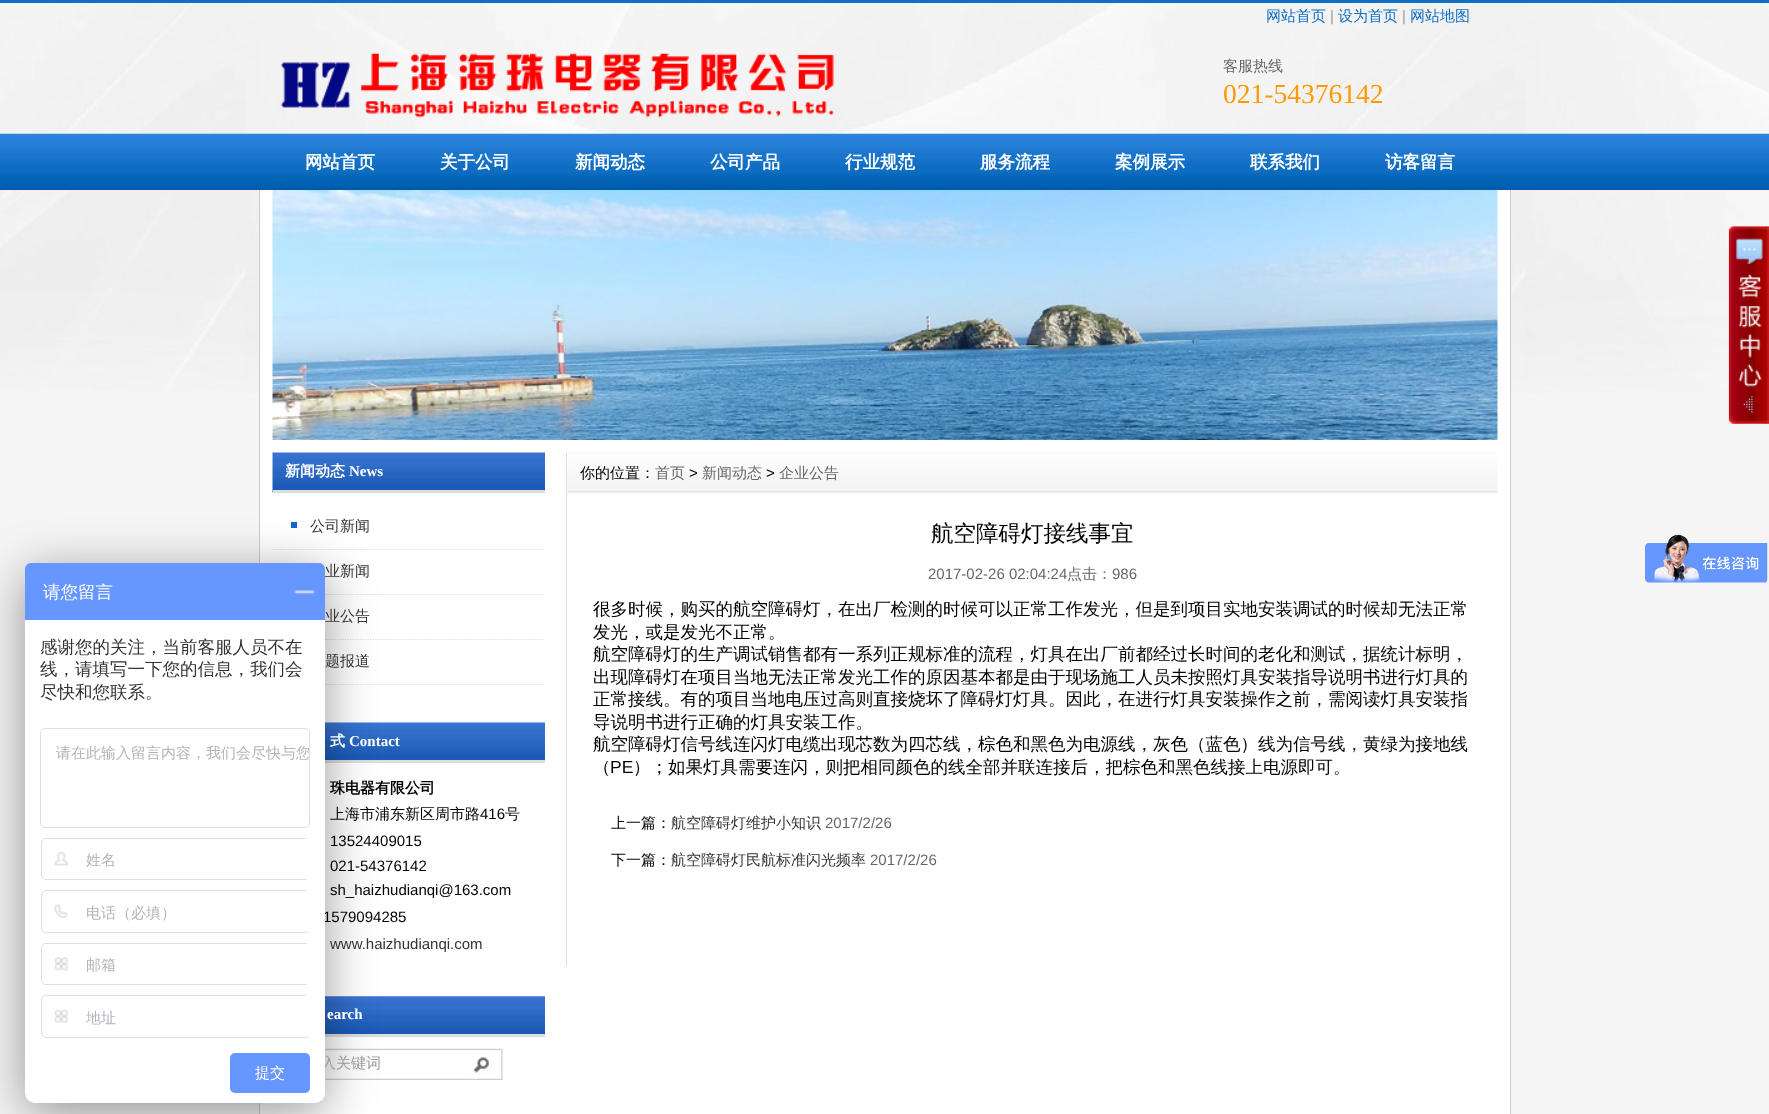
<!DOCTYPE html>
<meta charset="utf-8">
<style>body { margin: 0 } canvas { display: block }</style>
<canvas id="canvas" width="1769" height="1114"></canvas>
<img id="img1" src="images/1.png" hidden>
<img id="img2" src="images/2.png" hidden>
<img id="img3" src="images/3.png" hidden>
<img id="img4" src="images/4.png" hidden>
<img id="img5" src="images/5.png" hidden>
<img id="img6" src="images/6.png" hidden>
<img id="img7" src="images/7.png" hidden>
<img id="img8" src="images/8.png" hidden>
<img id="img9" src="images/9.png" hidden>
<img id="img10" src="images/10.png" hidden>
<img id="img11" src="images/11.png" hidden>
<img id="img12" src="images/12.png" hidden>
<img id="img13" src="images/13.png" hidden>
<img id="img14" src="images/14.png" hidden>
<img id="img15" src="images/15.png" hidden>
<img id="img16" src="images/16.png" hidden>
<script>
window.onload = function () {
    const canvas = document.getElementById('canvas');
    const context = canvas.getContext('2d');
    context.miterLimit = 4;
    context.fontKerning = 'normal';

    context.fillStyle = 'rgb(245, 245, 245)';
    context.fillRect(0, 0, 1769, 1114);
    context.drawImage(document.getElementById('img1'), 0, 3, 1769, 390);
    context.fillStyle = 'rgb(17, 110, 195)';
    context.fillRect(0, 0, 1769, 3);
    context.drawImage(document.getElementById('img2'), 281, 53, 553, 65);
    context.drawImage(document.getElementById('img3'), 0, 133, 1769, 57);
    context.fillStyle = 'rgb(255, 255, 255)';
    context.fillRect(260, 190, 1250, 924);
    context.fillStyle = 'rgb(204, 204, 204)';
    context.fillRect(1510, 190, 1, 924);
    context.fillRect(259, 190, 1, 924);
    context.drawImage(document.getElementById('img4'), 272, 190, 1226, 250);
    context.drawImage(document.getElementById('img5'), 272, 452, 273, 41);
    context.fillStyle = 'rgb(221, 221, 221)';
    context.fillRect(273, 490, 272, 3);
    context.fillStyle = 'rgb(29, 99, 202)';
    context.fillRect(291, 522, 6, 6);
    context.beginPath();
    context.moveTo(272.5, 549.5);
    context.lineTo(545, 549.5);
    context.strokeStyle = 'rgb(221, 221, 221)';
    context.lineWidth = 1.2;
    context.setLineDash([1.25, 1.25]);
    context.stroke();
    context.beginPath();
    context.moveTo(272.5, 594.5);
    context.lineTo(545, 594.5);
    context.stroke();
    context.beginPath();
    context.moveTo(272.5, 639.5);
    context.lineTo(545, 639.5);
    context.stroke();
    context.beginPath();
    context.moveTo(272.5, 684.5);
    context.lineTo(545, 684.5);
    context.stroke();
    context.drawImage(document.getElementById('img6'), 325, 722, 220, 38);
    context.fillStyle = 'rgb(221, 221, 221)';
    context.fillRect(325, 760, 220, 3);
    context.drawImage(document.getElementById('img7'), 325, 996, 220, 38);
    context.fillRect(325, 1034, 220, 3);
    context.drawImage(document.getElementById('img8'), 325, 1048, 178, 32);
    context.fillRect(566, 453, 1, 513);
    context.drawImage(document.getElementById('img9'), 567, 452, 931, 41);
    context.drawImage(document.getElementById('img10'), 1728, 226, 41, 198);
    context.drawImage(document.getElementById('img11'), 1645, 534, 123, 49);
    context.fillStyle = 'rgba(0, 0, 0, 0.4)';
    context.filter = 'blur(25px)';
    context.beginPath();
    context.roundRect(25, 573, 300, 540, 10);
    context.fill();
    context.filter = 'none';
    context.font = '500 15px WenQuanYi Zen Hei';
    context.fillStyle = 'rgb(17, 110, 195)';
    context.fillText('网站首页', 1266, 21);
    context.font = '15px Liberation Sans';
    context.fillStyle = 'rgb(153, 153, 153)';
    context.fillText('|', 1330, 21);
    context.font = '500 15px WenQuanYi Zen Hei';
    context.fillStyle = 'rgb(17, 110, 195)';
    context.fillText('设为首页', 1338, 21);
    context.font = '15px Liberation Sans';
    context.fillStyle = 'rgb(153, 153, 153)';
    context.fillText('|', 1402, 21);
    context.font = '500 15px WenQuanYi Zen Hei';
    context.fillStyle = 'rgb(17, 110, 195)';
    context.fillText('网站地图', 1410, 21);
    context.fillStyle = 'rgb(102, 102, 102)';
    context.fillText('客服热线', 1223, 71);
    context.font = '27.5px Liberation Serif';
    context.fillStyle = 'rgb(255, 153, 0)';
    context.fillText('021-54376142', 1223, 103);
    context.font = 'bold 17.5px WenQuanYi Zen Hei';
    context.fillStyle = 'rgb(255, 255, 255)';
    context.fillText('网站首页', 305, 168);
    context.fillText('关于公司', 440, 168);
    context.fillText('新闻动态', 575, 168);
    context.fillText('公司产品', 710, 168);
    context.fillText('行业规范', 845, 168);
    context.fillText('服务流程', 980, 168);
    context.fillText('案例展示', 1115, 168);
    context.fillText('联系我们', 1250, 168);
    context.fillText('访客留言', 1385, 168);
    context.font = 'bold 15px WenQuanYi Zen Hei';
    context.fillText('新闻动态', 285, 476);
    context.font = 'bold 15px Liberation Serif';
    context.fillText('News', 349, 476);
    context.font = '500 15px WenQuanYi Zen Hei';
    context.fillStyle = 'rgb(51, 51, 51)';
    context.fillText('公司新闻', 310, 531);
    context.fillText('业新闻', 325, 576);
    context.fillText('业公告', 325, 621);
    context.fillText('题报道', 325, 666);
    context.font = 'bold 15px WenQuanYi Zen Hei';
    context.fillStyle = 'rgb(255, 255, 255)';
    context.fillText('式', 330, 746);
    context.font = 'bold 15px Liberation Serif';
    context.fillText('Contact', 349, 746);
    context.font = 'bold 15px WenQuanYi Zen Hei';
    context.fillStyle = 'rgb(0, 0, 0)';
    context.fillText('珠电器有限公司', 330, 793);
    context.font = '500 15px WenQuanYi Zen Hei';
    context.fillText('上海市浦东新区周市路', 330, 819);
    context.font = '15px Liberation Sans';
    context.fillText('416', 480, 819);
    context.font = '500 15px WenQuanYi Zen Hei';
    context.fillText('号', 505, 819);
    context.font = '15px Liberation Sans';
    context.fillText('13524409015', 330, 846);
    context.fillText('021-54376142', 330, 871);
    context.fillText('sh_haizhudianqi@163.com', 330, 895);
    context.fillText('1579094285', 323, 922);
    context.fillStyle = 'rgb(51, 51, 51)';
    context.fillText('www.haizhudianqi.com', 330, 949);
    context.font = 'bold 15px Liberation Serif';
    context.fillStyle = 'rgb(255, 255, 255)';
    context.fillText('earch', 327, 1019);
    context.font = '500 15px WenQuanYi Zen Hei';
    context.fillStyle = 'rgb(153, 153, 153)';
    context.fillText('入关键词', 321, 1068);
    context.fillStyle = 'rgb(0, 0, 0)';
    context.fillText('你的位置：', 580, 478);
    context.fillStyle = 'rgb(102, 102, 102)';
    context.fillText('首页', 655, 478);
    context.font = '15px Liberation Sans';
    context.fillStyle = 'rgb(0, 0, 0)';
    context.fillText('>', 689, 478);
    context.font = '500 15px WenQuanYi Zen Hei';
    context.fillStyle = 'rgb(102, 102, 102)';
    context.fillText('新闻动态', 702, 478);
    context.font = '15px Liberation Sans';
    context.fillStyle = 'rgb(0, 0, 0)';
    context.fillText('>', 766, 478);
    context.font = '500 15px WenQuanYi Zen Hei';
    context.fillStyle = 'rgb(102, 102, 102)';
    context.fillText('企业公告', 779, 478);
    context.font = '500 22.5px WenQuanYi Zen Hei';
    context.fillStyle = 'rgb(0, 0, 0)';
    context.fillText('航空障碍灯接线事宜', 931, 541);
    context.font = '15px Liberation Sans';
    context.fillStyle = 'rgb(102, 102, 102)';
    context.fillText('2017-02-26 02:04:24', 928, 579);
    context.font = '500 15px WenQuanYi Zen Hei';
    context.fillText('点击：', 1067, 579);
    context.font = '15px Liberation Sans';
    context.fillText('986', 1112, 579);
    context.font = '500 17.5px WenQuanYi Zen Hei';
    context.fillStyle = 'rgb(0, 0, 0)';
    context.fillText('很多时候，购买的航空障碍灯，在出厂检测的时候可以正常工作发光，但是到项目实地安装调试的时候却无法正常', 593, 615);
    context.fillText('发光，或是发光不正常。', 593, 638);
    context.fillText('航空障碍灯的生产调试销售都有一系列正规标准的流程，灯具在出厂前都经过长时间的老化和测试，据统计标明，', 593, 660);
    context.fillText('出现障碍灯在项目当地无法正常发光工作的原因基本都是由于现场施工人员未按照灯具安装指导说明书进行灯具的', 593, 683);
    context.fillText('正常接线。有的项目当地电压过高则直接烧坏了障碍灯灯具。因此，在进行灯具安装操作之前，需阅读灯具安装指', 593, 705);
    context.fillText('导说明书进行正确的灯具安装工作。', 593, 728);
    context.fillText('航空障碍灯信号线连闪灯电缆出现芯数为四芯线，棕色和黑色为电源线，灰色（蓝色）线为信号线，黄绿为接地线', 593, 750);
    context.fillText('（', 593, 773);
    context.font = '17.5px Liberation Sans';
    context.fillText('PE', 610, 773);
    context.font = '500 17.5px WenQuanYi Zen Hei';
    context.fillText('）；如果灯具需要连闪，则把相同颜色的线全部并联连接后，把棕色和黑色线接上电源即可。', 633, 773);
    context.font = '500 15px WenQuanYi Zen Hei';
    context.fillText('上一篇：', 611, 828);
    context.fillStyle = 'rgb(51, 51, 51)';
    context.fillText('航空障碍灯维护小知识', 671, 828);
    context.font = '15px Liberation Sans';
    context.fillStyle = 'rgb(102, 102, 102)';
    context.fillText('2017/2/26', 825, 828);
    context.font = '500 15px WenQuanYi Zen Hei';
    context.fillStyle = 'rgb(0, 0, 0)';
    context.fillText('下一篇：', 611, 865);
    context.fillStyle = 'rgb(51, 51, 51)';
    context.fillText('航空障碍灯民航标准闪光频率', 671, 865);
    context.font = '15px Liberation Sans';
    context.fillStyle = 'rgb(102, 102, 102)';
    context.fillText('2017/2/26', 870, 865);
    context.fillStyle = 'rgb(255, 255, 255)';
    context.beginPath();
    context.roundRect(25, 563, 300, 540, 10);
    context.fill();
    context.fillStyle = 'rgb(102, 150, 255)';
    context.beginPath();
    context.roundRect(25, 563, 300, 57, [6, 6, 0, 0]);
    context.fill();
    context.font = '500 17.5px WenQuanYi Zen Hei';
    context.fillStyle = 'rgb(255, 255, 255)';
    context.fillText('请您留言', 43, 598);
    context.drawImage(document.getElementById('img12'), 293, 590, 23, 5);
    context.fillStyle = 'rgb(51, 51, 51)';
    context.fillText('感谢您的关注，当前客服人员不在', 40, 653);
    context.fillText('线，请填写一下您的信息，我们会', 40, 675);
    context.fillText('尽快和您联系。', 40, 698);
    context.beginPath();
    context.roundRect(40.5, 728.5, 269, 99, 4.5);
    context.strokeStyle = 'rgb(220, 223, 230)';
    context.lineWidth = 1;
    context.setLineDash([]);
    context.stroke();
    context.save();
    context.beginPath();
    context.roundRect(41, 729, 268, 97, 4);
    context.clip();
    context.font = '500 15px WenQuanYi Zen Hei';
    context.fillStyle = 'rgb(176, 180, 187)';
    context.fillText('请在此输入留言内容，我们会尽快与您', 56, 758);
    context.restore();
    context.beginPath();
    context.roundRect(41.5, 838.5, 268, 41, 4.5);
    context.stroke();
    context.drawImage(document.getElementById('img13'), 54, 851, 15, 15);
    context.fillStyle = 'rgb(255, 255, 255)';
    context.fillRect(306, 839, 4, 40);
    context.font = '500 15px WenQuanYi Zen Hei';
    context.fillStyle = 'rgb(176, 180, 187)';
    context.fillText('姓名', 86, 865);
    context.beginPath();
    context.roundRect(41.5, 890.5, 268, 42, 4.5);
    context.stroke();
    context.drawImage(document.getElementById('img14'), 54, 904, 14, 15);
    context.fillStyle = 'rgb(255, 255, 255)';
    context.fillRect(306, 891, 4, 40);
    context.fillStyle = 'rgb(176, 180, 187)';
    context.fillText('电话（必填）', 86, 918);
    context.beginPath();
    context.roundRect(41.5, 943.5, 268, 41, 4.5);
    context.stroke();
    context.drawImage(document.getElementById('img15'), 54, 957, 15, 14);
    context.fillStyle = 'rgb(255, 255, 255)';
    context.fillRect(306, 944, 4, 40);
    context.fillStyle = 'rgb(176, 180, 187)';
    context.fillText('邮箱', 86, 970);
    context.beginPath();
    context.roundRect(41.5, 995.5, 268, 42, 4.5);
    context.stroke();
    context.drawImage(document.getElementById('img16'), 54, 1009, 15, 14);
    context.fillStyle = 'rgb(255, 255, 255)';
    context.fillRect(306, 996, 4, 40);
    context.fillStyle = 'rgb(176, 180, 187)';
    context.fillText('地址', 86, 1023);
    context.fillStyle = 'rgb(102, 150, 255)';
    context.beginPath();
    context.roundRect(230, 1053, 80, 40, 5);
    context.fill();
    context.fillStyle = 'rgb(255, 255, 255)';
    context.fillText('提交', 255, 1078);
};
</script>
